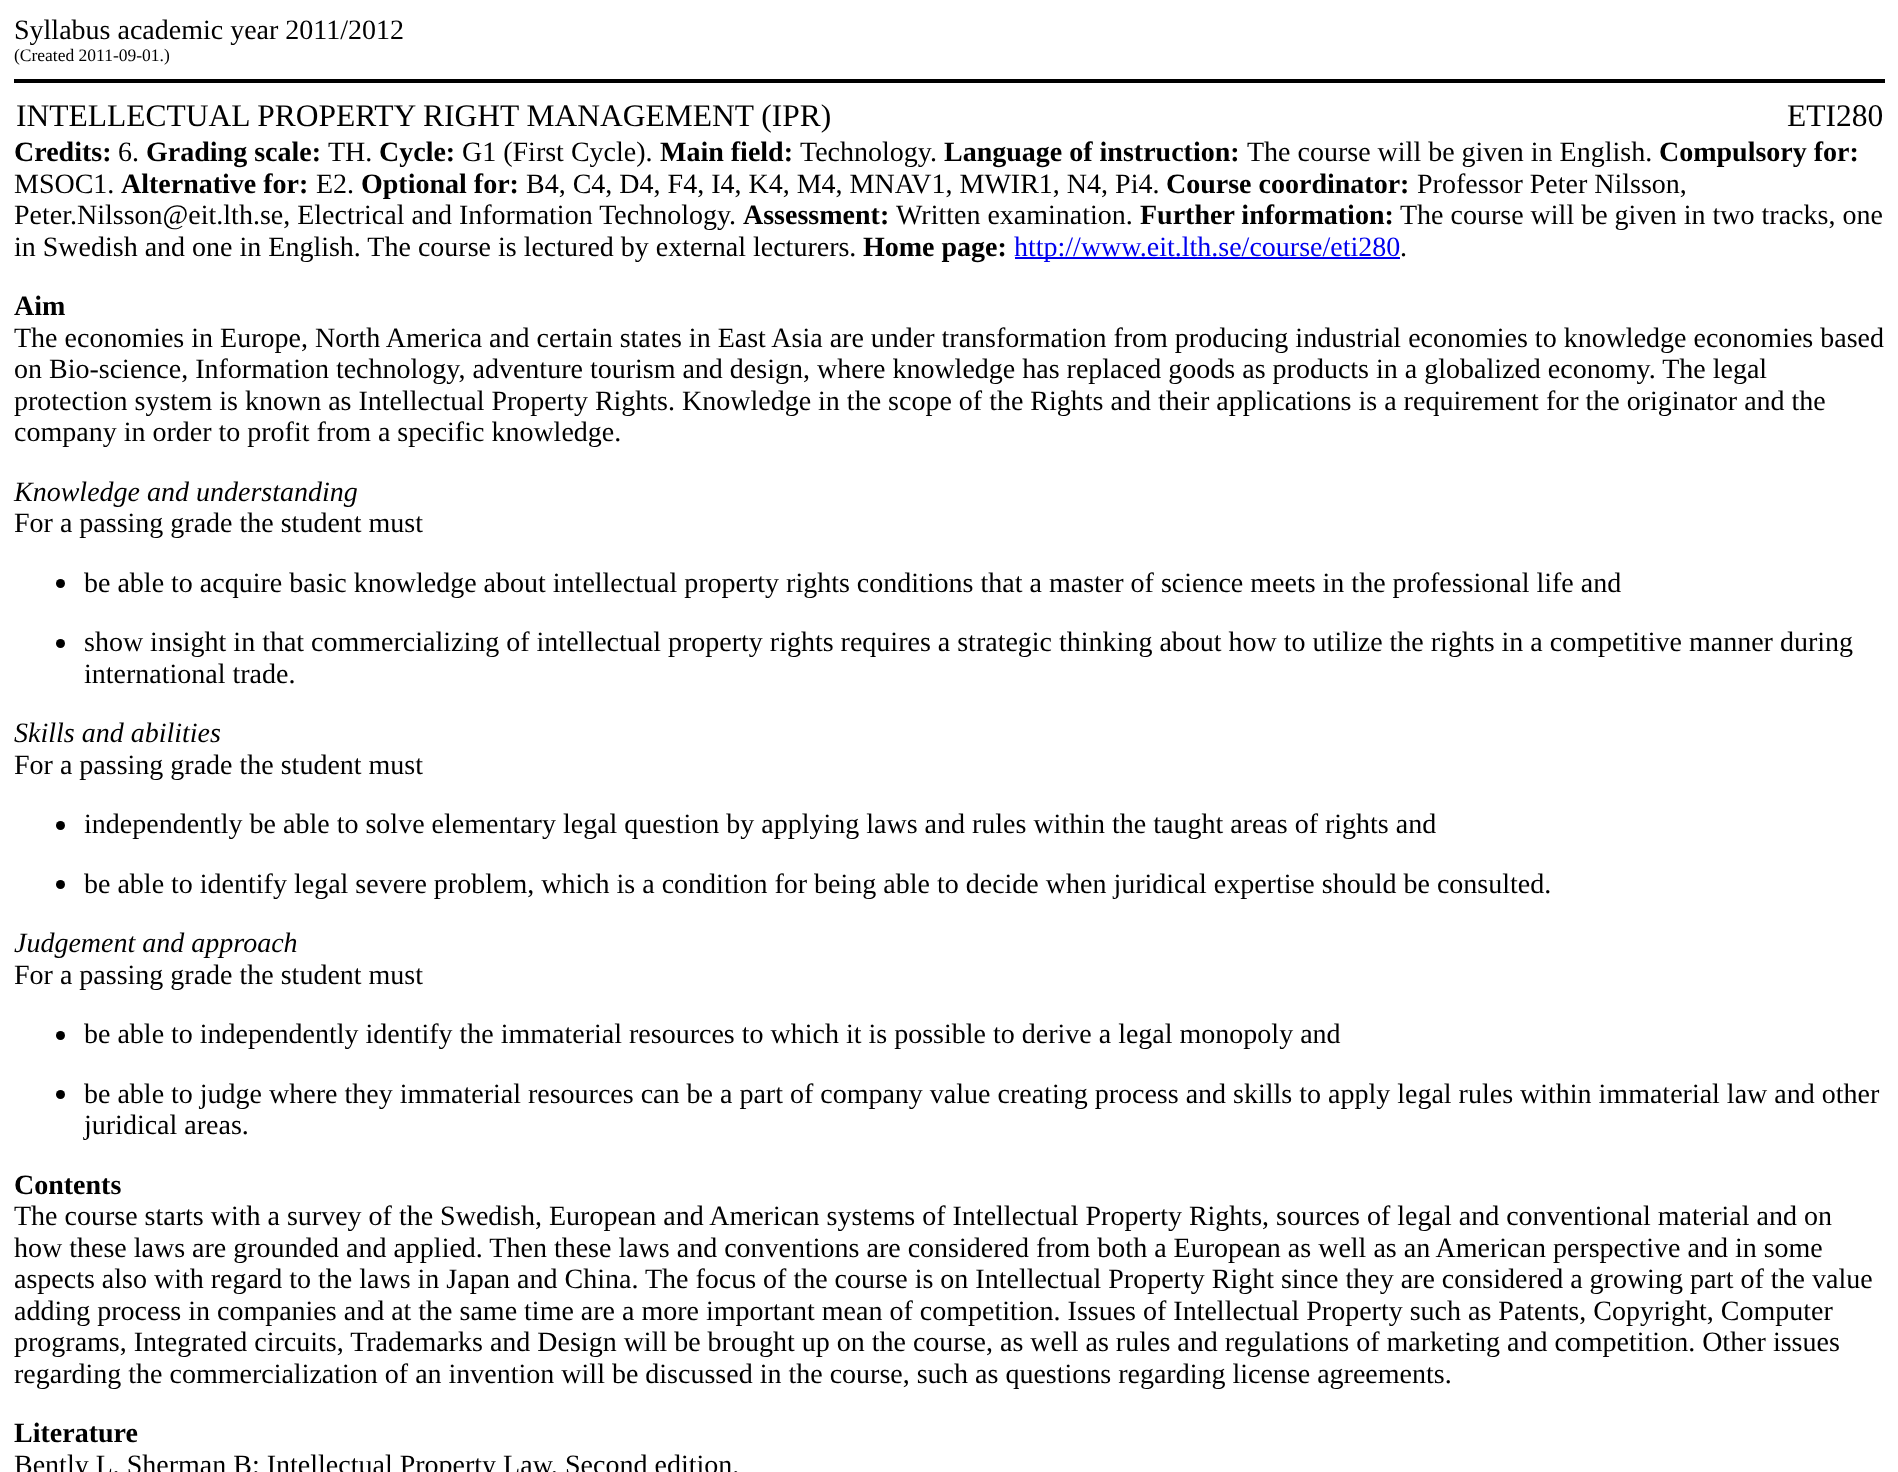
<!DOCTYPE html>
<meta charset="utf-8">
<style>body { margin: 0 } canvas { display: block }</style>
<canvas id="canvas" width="1898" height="1472"></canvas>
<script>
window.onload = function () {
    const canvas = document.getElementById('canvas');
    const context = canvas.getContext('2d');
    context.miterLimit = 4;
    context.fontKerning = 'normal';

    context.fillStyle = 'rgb(255, 255, 255)';
    context.fillRect(0, 0, 1898, 1472);
    context.fillStyle = 'rgb(0, 0, 0)';
    context.fillRect(14, 79, 1871, 4);
    context.fillStyle = 'rgb(0, 0, 238)';
    context.fillRect(1015, 257, 385, 2);
    context.fillStyle = 'rgb(0, 0, 0)';
    context.beginPath();
    context.arc(60.5, 583.5, 4.5, 0, 2 * Math.PI);
    context.fill();
    context.beginPath();
    context.arc(60.5, 643.5, 4.5, 0, 2 * Math.PI);
    context.fill();
    context.beginPath();
    context.arc(60.5, 825.5, 4.5, 0, 2 * Math.PI);
    context.fill();
    context.beginPath();
    context.arc(60.5, 884.5, 4.5, 0, 2 * Math.PI);
    context.fill();
    context.beginPath();
    context.arc(60.5, 1035.5, 4.5, 0, 2 * Math.PI);
    context.fill();
    context.beginPath();
    context.arc(60.5, 1094.5, 4.5, 0, 2 * Math.PI);
    context.fill();
    context.font = '28px Liberation Serif';
    context.fillText('Syllabus academic year 2011/2012', 14, 39);
    context.font = '17.5px Liberation Serif';
    context.fillText('(Created 2011-09-01.)', 14, 61);
    context.font = '31.5px Liberation Serif';
    context.fillText('INTELLECTUAL PROPERTY RIGHT MANAGEMENT (IPR)', 16, 126);
    context.fillText('ETI280', 1787, 126);
    context.font = 'bold 28px Liberation Serif';
    context.fillText('Credits:', 14, 161);
    context.font = '28px Liberation Serif';
    context.fillText('6.', 118, 161);
    context.font = 'bold 28px Liberation Serif';
    context.fillText('Grading scale:', 146, 161);
    context.font = '28px Liberation Serif';
    context.fillText('TH.', 328, 161);
    context.font = 'bold 28px Liberation Serif';
    context.fillText('Cycle:', 379, 161);
    context.font = '28px Liberation Serif';
    context.fillText('G1 (First Cycle).', 462, 161);
    context.font = 'bold 28px Liberation Serif';
    context.fillText('Main field:', 660, 161);
    context.font = '28px Liberation Serif';
    context.fillText('Technology.', 800, 161);
    context.font = 'bold 28px Liberation Serif';
    context.fillText('Language of instruction:', 944, 161);
    context.font = '28px Liberation Serif';
    context.fillText('The course will be given in English.', 1247, 161);
    context.font = 'bold 28px Liberation Serif';
    context.fillText('Compulsory for:', 1659, 161);
    context.font = '28px Liberation Serif';
    context.fillText('MSOC1.', 14, 193);
    context.font = 'bold 28px Liberation Serif';
    context.fillText('Alternative for:', 121, 193);
    context.font = '28px Liberation Serif';
    context.fillText('E2.', 316, 193);
    context.font = 'bold 28px Liberation Serif';
    context.fillText('Optional for:', 361, 193);
    context.font = '28px Liberation Serif';
    context.fillText('B4, C4, D4, F4, I4, K4, M4, MNAV1, MWIR1, N4, Pi4.', 526, 193);
    context.font = 'bold 28px Liberation Serif';
    context.fillText('Course coordinator:', 1166, 193);
    context.font = '28px Liberation Serif';
    context.fillText('Professor Peter Nilsson,', 1417, 193);
    context.fillText('Peter.Nilsson@eit.lth.se, Electrical and Information Technology.', 14, 224);
    context.font = 'bold 28px Liberation Serif';
    context.fillText('Assessment:', 743, 224);
    context.font = '28px Liberation Serif';
    context.fillText('Written examination.', 896, 224);
    context.font = 'bold 28px Liberation Serif';
    context.fillText('Further information:', 1140, 224);
    context.font = '28px Liberation Serif';
    context.fillText('The course will be given in two tracks, one', 1400, 224);
    context.fillText('in Swedish and one in English. The course is lectured by external lecturers.', 14, 256);
    context.font = 'bold 28px Liberation Serif';
    context.fillText('Home page:', 863, 256);
    context.font = '28px Liberation Serif';
    context.fillStyle = 'rgb(0, 0, 238)';
    context.fillText('http://www.eit.lth.se/course/eti280', 1014, 256);
    context.fillStyle = 'rgb(0, 0, 0)';
    context.fillText('.', 1400, 256);
    context.font = 'bold 28px Liberation Serif';
    context.fillText('Aim', 14, 315);
    context.font = '28px Liberation Serif';
    context.fillText('The economies in Europe, North America and certain states in East Asia are under transformation from producing industrial economies to knowledge economies based', 14, 347);
    context.fillText('on Bio-science, Information technology, adventure tourism and design, where knowledge has replaced goods as products in a globalized economy. The legal', 14, 378);
    context.fillText('protection system is known as Intellectual Property Rights. Knowledge in the scope of the Rights and their applications is a requirement for the originator and the', 14, 410);
    context.fillText('company in order to profit from a specific knowledge.', 14, 441);
    context.font = 'italic 28px Liberation Serif';
    context.fillText('Knowledge and understanding', 14, 501);
    context.font = '28px Liberation Serif';
    context.fillText('For a passing grade the student must', 14, 532);
    context.fillText('be able to acquire basic knowledge about intellectual property rights conditions that a master of science meets in the professional life and', 84, 592);
    context.fillText('show insight in that commercializing of intellectual property rights requires a strategic thinking about how to utilize the rights in a competitive manner during', 84, 651);
    context.fillText('international trade.', 84, 683);
    context.font = 'italic 28px Liberation Serif';
    context.fillText('Skills and abilities', 14, 742);
    context.font = '28px Liberation Serif';
    context.fillText('For a passing grade the student must', 14, 774);
    context.fillText('independently be able to solve elementary legal question by applying laws and rules within the taught areas of rights and', 84, 833);
    context.fillText('be able to identify legal severe problem, which is a condition for being able to decide when juridical expertise should be consulted.', 84, 893);
    context.font = 'italic 28px Liberation Serif';
    context.fillText('Judgement and approach', 14, 952);
    context.font = '28px Liberation Serif';
    context.fillText('For a passing grade the student must', 14, 984);
    context.fillText('be able to independently identify the immaterial resources to which it is possible to derive a legal monopoly and', 84, 1043);
    context.fillText('be able to judge where they immaterial resources can be a part of company value creating process and skills to apply legal rules within immaterial law and other', 84, 1103);
    context.fillText('juridical areas.', 84, 1134);
    context.font = 'bold 28px Liberation Serif';
    context.fillText('Contents', 14, 1194);
    context.font = '28px Liberation Serif';
    context.fillText('The course starts with a survey of the Swedish, European and American systems of Intellectual Property Rights, sources of legal and conventional material and on', 14, 1225);
    context.fillText('how these laws are grounded and applied. Then these laws and conventions are considered from both a European as well as an American perspective and in some', 14, 1257);
    context.fillText('aspects also with regard to the laws in Japan and China. The focus of the course is on Intellectual Property Right since they are considered a growing part of the value', 14, 1288);
    context.fillText('adding process in companies and at the same time are a more important mean of competition. Issues of Intellectual Property such as Patents, Copyright, Computer', 14, 1320);
    context.fillText('programs, Integrated circuits, Trademarks and Design will be brought up on the course, as well as rules and regulations of marketing and competition. Other issues', 14, 1351);
    context.fillText('regarding the commercialization of an invention will be discussed in the course, such as questions regarding license agreements.', 14, 1383);
    context.font = 'bold 28px Liberation Serif';
    context.fillText('Literature', 14, 1442);
    context.font = '28px Liberation Serif';
    context.fillText('Bently L, Sherman B: Intellectual Property Law, Second edition.', 14, 1474);
};
</script>
